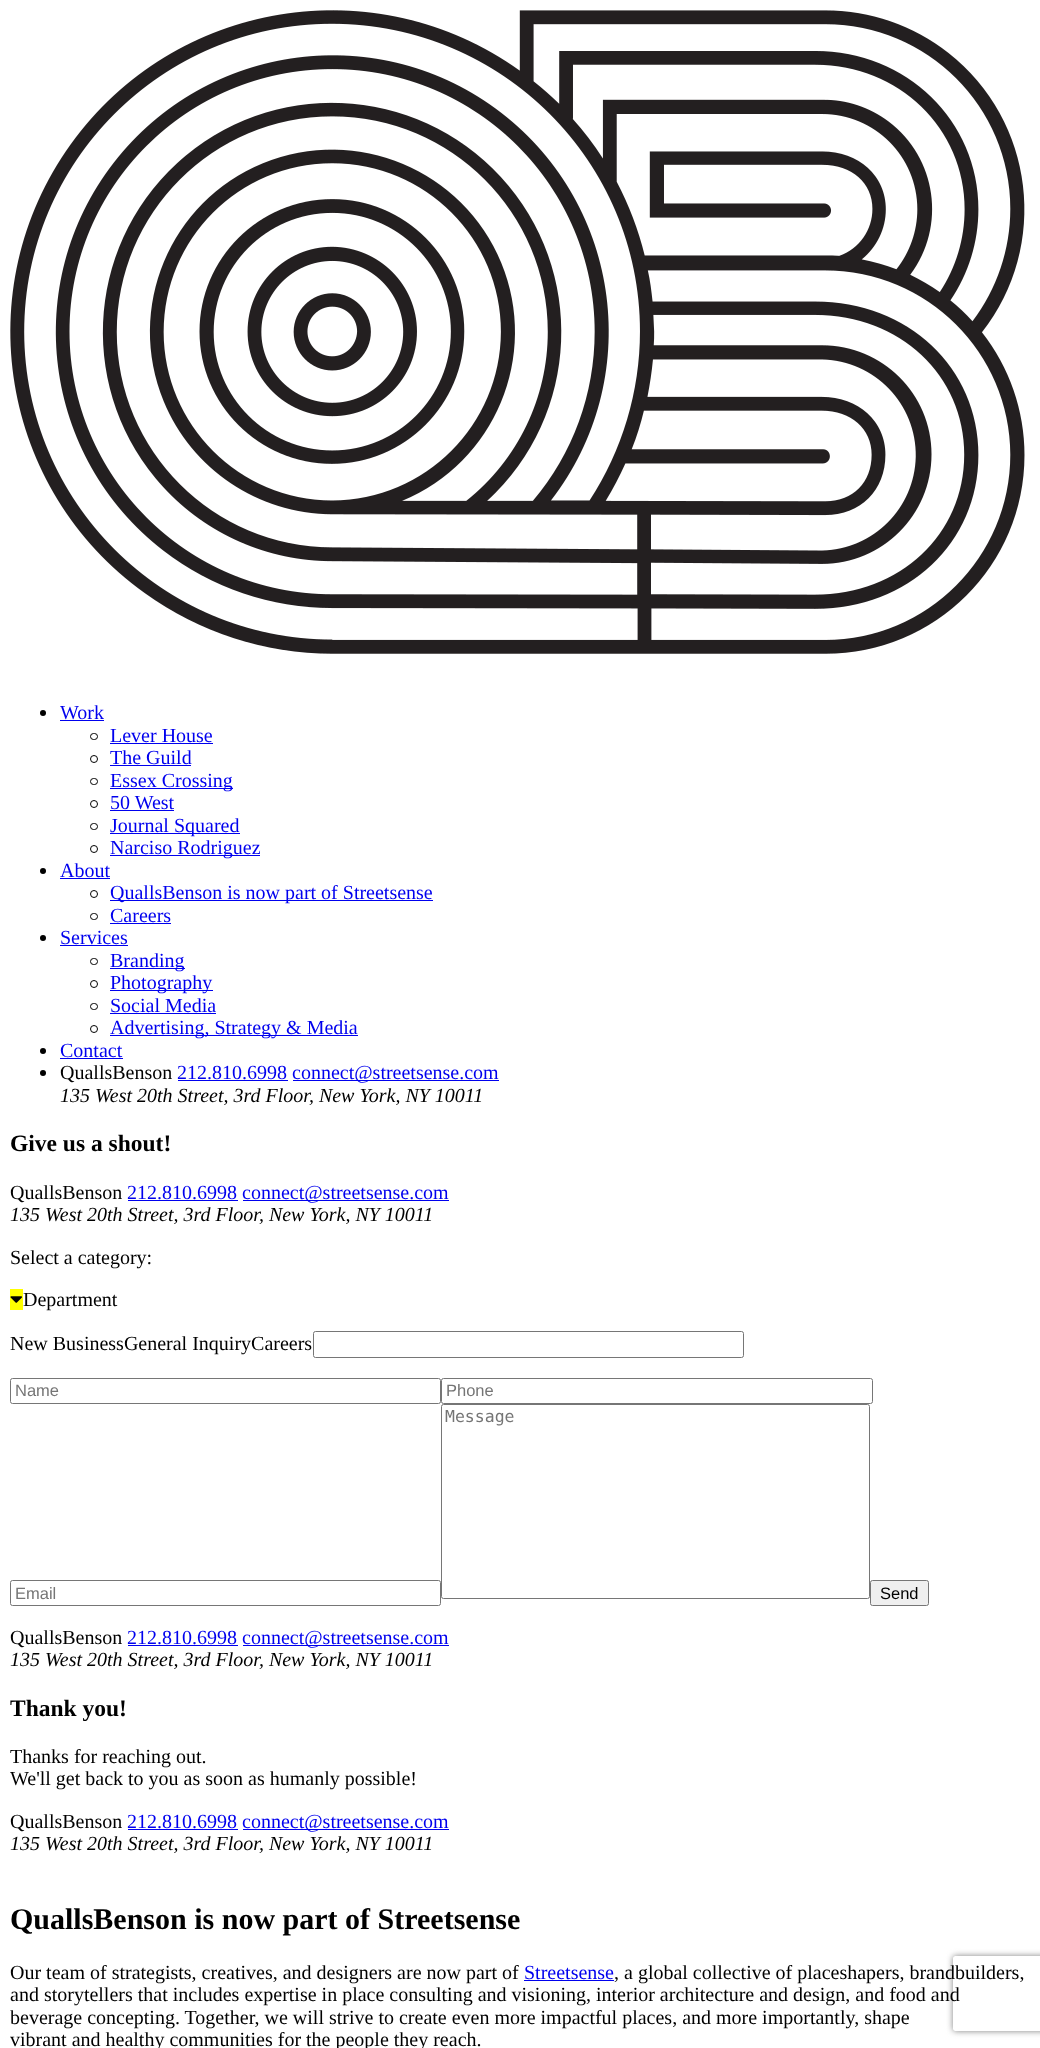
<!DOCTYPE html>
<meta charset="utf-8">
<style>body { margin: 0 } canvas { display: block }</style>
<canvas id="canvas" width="1040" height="2048"></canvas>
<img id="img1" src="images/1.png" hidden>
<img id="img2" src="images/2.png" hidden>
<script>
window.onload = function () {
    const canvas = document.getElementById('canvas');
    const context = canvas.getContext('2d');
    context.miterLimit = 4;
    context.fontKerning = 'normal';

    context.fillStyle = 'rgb(255, 255, 255)';
    context.fillRect(0, 0, 1040, 2048);
    context.drawImage(document.getElementById('img1'), 10, 10, 1015, 644);
    context.fillStyle = 'rgb(0, 0, 0)';
    context.beginPath();
    context.arc(43, 713, 3, 0, 2 * Math.PI);
    context.fill();
    context.fillStyle = 'rgb(0, 0, 238)';
    context.fillRect(60, 720, 44, 1);
    context.beginPath();
    context.roundRect(90.5, 733.5, 7, 6, 3);
    context.strokeStyle = 'rgb(0, 0, 0)';
    context.stroke();
    context.fillRect(110, 743, 103, 1);
    context.beginPath();
    context.arc(94, 759, 3.5, 0, 2 * Math.PI);
    context.stroke();
    context.fillRect(110, 765, 81, 1);
    context.beginPath();
    context.roundRect(90.5, 778.5, 7, 6, 3);
    context.stroke();
    context.fillRect(110, 788, 123, 1);
    context.beginPath();
    context.arc(94, 804, 3.5, 0, 2 * Math.PI);
    context.stroke();
    context.fillRect(110, 810, 64, 1);
    context.beginPath();
    context.roundRect(90.5, 823.5, 7, 6, 3);
    context.stroke();
    context.fillRect(110, 833, 130, 1);
    context.beginPath();
    context.arc(94, 849, 3.5, 0, 2 * Math.PI);
    context.stroke();
    context.fillRect(110, 855, 150, 1);
    context.fillStyle = 'rgb(0, 0, 0)';
    context.beginPath();
    context.arc(43, 871, 3, 0, 2 * Math.PI);
    context.fill();
    context.fillStyle = 'rgb(0, 0, 238)';
    context.fillRect(60, 878, 50, 1);
    context.beginPath();
    context.arc(94, 894, 3.5, 0, 2 * Math.PI);
    context.stroke();
    context.fillRect(110, 900, 323, 1);
    context.beginPath();
    context.roundRect(90.5, 913.5, 7, 6, 3);
    context.stroke();
    context.fillRect(110, 923, 61, 1);
    context.fillStyle = 'rgb(0, 0, 0)';
    context.beginPath();
    context.arc(43, 938, 3, 0, 2 * Math.PI);
    context.fill();
    context.fillStyle = 'rgb(0, 0, 238)';
    context.fillRect(60, 945, 68, 1);
    context.beginPath();
    context.roundRect(90.5, 958.5, 7, 6, 3);
    context.stroke();
    context.fillRect(110, 968, 75, 1);
    context.beginPath();
    context.arc(94, 984, 3.5, 0, 2 * Math.PI);
    context.stroke();
    context.fillRect(110, 990, 103, 1);
    context.beginPath();
    context.roundRect(90.5, 1003.5, 7, 6, 3);
    context.stroke();
    context.fillRect(110, 1013, 106, 1);
    context.beginPath();
    context.arc(94, 1029, 3.5, 0, 2 * Math.PI);
    context.stroke();
    context.fillRect(110, 1035, 248, 1);
    context.fillStyle = 'rgb(0, 0, 0)';
    context.beginPath();
    context.arc(43, 1051, 3, 0, 2 * Math.PI);
    context.fill();
    context.fillStyle = 'rgb(0, 0, 238)';
    context.fillRect(60, 1058, 63, 1);
    context.fillStyle = 'rgb(0, 0, 0)';
    context.beginPath();
    context.arc(43, 1073, 3, 0, 2 * Math.PI);
    context.fill();
    context.fillStyle = 'rgb(0, 0, 238)';
    context.fillRect(178, 1080, 110, 1);
    context.fillRect(293, 1080, 206, 1);
    context.fillRect(128, 1200, 110, 1);
    context.fillRect(243, 1200, 206, 1);
    context.fillStyle = 'rgb(255, 255, 0)';
    context.fillRect(10, 1289, 13, 21);
    context.drawImage(document.getElementById('img2'), 10, 1296, 12, 7);
    context.beginPath();
    context.roundRect(313.5, 1331.5, 430, 26, 2);
    context.strokeStyle = 'rgb(118, 118, 118)';
    context.stroke();
    context.beginPath();
    context.roundRect(10.5, 1378.5, 430, 25, 2);
    context.stroke();
    context.beginPath();
    context.roundRect(441.5, 1378.5, 431, 25, 2);
    context.stroke();
    context.beginPath();
    context.roundRect(441.5, 1404.5, 428, 194, 2);
    context.stroke();
    context.beginPath();
    context.roundRect(10.5, 1580.5, 430, 25, 2);
    context.stroke();
    context.fillStyle = 'rgb(239, 239, 239)';
    context.beginPath();
    context.roundRect(870.5, 1580.5, 58, 25, 2);
    context.fill();
    context.stroke();
    context.fillStyle = 'rgb(0, 0, 238)';
    context.fillRect(128, 1645, 110, 1);
    context.fillRect(243, 1645, 206, 1);
    context.fillRect(128, 1829, 110, 1);
    context.fillRect(243, 1829, 206, 1);
    context.fillRect(524, 1980, 90, 1);
    context.save();
    context.beginPath();
    context.moveTo(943, 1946);
    context.lineTo(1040, 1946);
    context.lineTo(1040, 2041);
    context.lineTo(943, 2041);
    context.closePath();
    context.moveTo(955.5, 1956);
    context.lineTo(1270.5, 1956);
    context.bezierCurveTo(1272, 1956, 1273, 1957, 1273, 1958.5);
    context.lineTo(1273, 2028.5);
    context.bezierCurveTo(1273, 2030, 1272, 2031, 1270.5, 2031);
    context.lineTo(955.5, 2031);
    context.bezierCurveTo(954, 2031, 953, 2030, 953, 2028.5);
    context.lineTo(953, 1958.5);
    context.bezierCurveTo(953, 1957, 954, 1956, 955.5, 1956);
    context.closePath();
    context.clip('evenodd');
    context.fillStyle = 'rgb(128, 128, 128)';
    context.filter = 'blur(3px)';
    context.beginPath();
    context.roundRect(953, 1956, 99, 75, 2.5);
    context.fill();
    context.filter = 'none';
    context.restore();
    context.font = '20px Liberation Serif';
    context.fillText('Work', 60, 719);
    context.fillText('Lever House', 110, 742);
    context.fillText('The Guild', 110, 764);
    context.fillText('Essex Crossing', 110, 787);
    context.fillText('50 West', 110, 809);
    context.fillText('Journal Squared', 110, 832);
    context.fillText('Narciso Rodriguez', 110, 854);
    context.fillText('About', 60, 877);
    context.fillText('QuallsBenson is now part of Streetsense', 110, 899);
    context.fillText('Careers', 110, 922);
    context.fillText('Services', 60, 944);
    context.fillText('Branding', 110, 967);
    context.fillText('Photography', 110, 989);
    context.fillText('Social Media', 110, 1012);
    context.fillText('Advertising, Strategy & Media', 110, 1034);
    context.fillText('Contact', 60, 1057);
    context.fillStyle = 'rgb(0, 0, 0)';
    context.fillText('QuallsBenson', 60, 1079);
    context.fillStyle = 'rgb(0, 0, 238)';
    context.fillText('212.810.6998', 177, 1079);
    context.fillText('connect@streetsense.com', 292, 1079);
    context.font = 'italic 20px Liberation Serif';
    context.fillStyle = 'rgb(0, 0, 0)';
    context.fillText('135 West 20th Street, 3rd Floor, New York, NY 10011', 60, 1102);
    context.font = 'bold 23.5px Liberation Serif';
    context.fillText('Give us a shout!', 10, 1151);
    context.font = '20px Liberation Serif';
    context.fillText('QuallsBenson', 10, 1199);
    context.fillStyle = 'rgb(0, 0, 238)';
    context.fillText('212.810.6998', 127, 1199);
    context.fillText('connect@streetsense.com', 242, 1199);
    context.font = 'italic 20px Liberation Serif';
    context.fillStyle = 'rgb(0, 0, 0)';
    context.fillText('135 West 20th Street, 3rd Floor, New York, NY 10011', 10, 1221);
    context.font = '20px Liberation Serif';
    context.fillText('Select a category:', 10, 1264);
    context.fillText('Department', 23, 1306);
    context.fillText('New BusinessGeneral InquiryCareers', 10, 1350);
    context.font = '16.5px Liberation Sans';
    context.fillStyle = 'rgb(117, 117, 117)';
    context.fillText('Name', 15, 1396);
    context.fillText('Phone', 446, 1396);
    context.font = '16.5px DejaVu Sans Mono';
    context.fillText('Message', 445, 1422);
    context.font = '16.5px Liberation Sans';
    context.fillText('Email', 15, 1599);
    context.fillStyle = 'rgb(0, 0, 0)';
    context.fillText('Send', 880, 1599);
    context.font = '20px Liberation Serif';
    context.fillText('QuallsBenson', 10, 1644);
    context.fillStyle = 'rgb(0, 0, 238)';
    context.fillText('212.810.6998', 127, 1644);
    context.fillText('connect@streetsense.com', 242, 1644);
    context.font = 'italic 20px Liberation Serif';
    context.fillStyle = 'rgb(0, 0, 0)';
    context.fillText('135 West 20th Street, 3rd Floor, New York, NY 10011', 10, 1666);
    context.font = 'bold 23.5px Liberation Serif';
    context.fillText('Thank you!', 10, 1716);
    context.font = '20px Liberation Serif';
    context.fillText('Thanks for reaching out.', 10, 1763);
    context.fillText('We\'ll get back to you as soon as humanly possible!', 10, 1785);
    context.fillText('QuallsBenson', 10, 1828);
    context.fillStyle = 'rgb(0, 0, 238)';
    context.fillText('212.810.6998', 127, 1828);
    context.fillText('connect@streetsense.com', 242, 1828);
    context.font = 'italic 20px Liberation Serif';
    context.fillStyle = 'rgb(0, 0, 0)';
    context.fillText('135 West 20th Street, 3rd Floor, New York, NY 10011', 10, 1850);
    context.font = 'bold 30px Liberation Serif';
    context.fillText('QuallsBenson is now part of Streetsense', 10, 1929);
    context.font = '20px Liberation Serif';
    context.fillText('Our team of strategists, creatives, and designers are now part of', 10, 1979);
    context.fillStyle = 'rgb(0, 0, 238)';
    context.fillText('Streetsense', 524, 1979);
    context.fillStyle = 'rgb(0, 0, 0)';
    context.fillText(', a global collective of placeshapers, brandbuilders,', 614, 1979);
    context.fillText('and storytellers that includes expertise in place consulting and visioning, interior architecture and design, and food and', 10, 2001);
    context.fillText('beverage concepting. Together, we will strive to create even more impactful places, and more importantly, shape', 10, 2024);
    context.fillText('vibrant and healthy communities for the people they reach.', 10, 2046);
};
</script>
